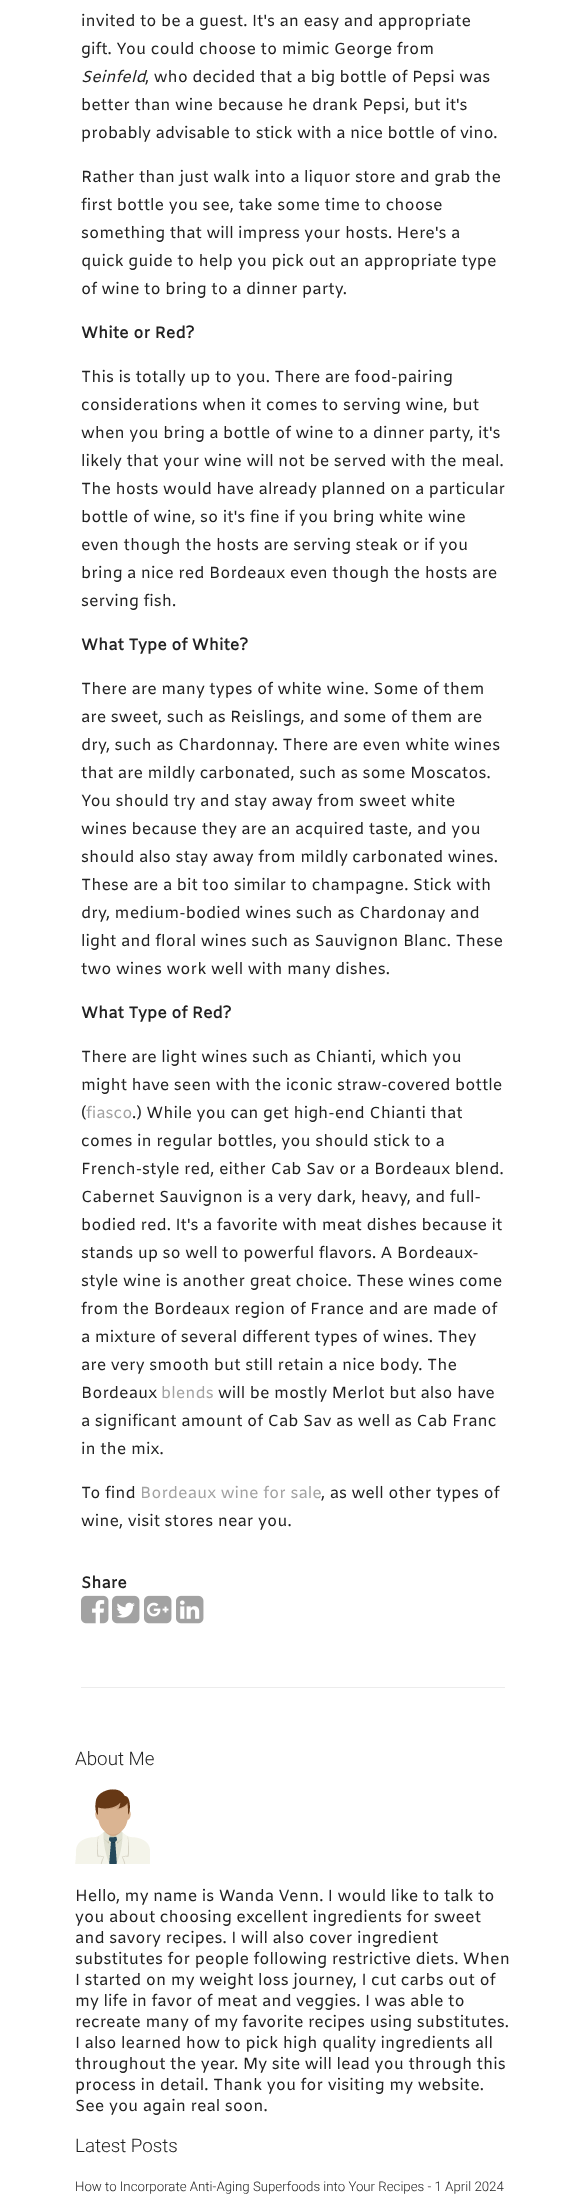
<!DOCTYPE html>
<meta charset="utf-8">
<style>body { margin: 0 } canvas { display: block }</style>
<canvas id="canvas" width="575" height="2196"></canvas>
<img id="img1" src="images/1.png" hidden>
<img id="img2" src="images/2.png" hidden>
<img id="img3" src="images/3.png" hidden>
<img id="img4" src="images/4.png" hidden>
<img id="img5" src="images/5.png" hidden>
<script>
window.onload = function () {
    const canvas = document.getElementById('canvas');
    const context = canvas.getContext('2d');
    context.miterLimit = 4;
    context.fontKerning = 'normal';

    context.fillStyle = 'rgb(255, 255, 255)';
    context.fillRect(0, 0, 575, 2196);
    context.fillStyle = 'rgb(236, 236, 236)';
    context.fillRect(81, 1687, 424, 1);
    context.drawImage(document.getElementById('img1'), 81, 1595, 28, 29);
    context.drawImage(document.getElementById('img2'), 112, 1595, 28, 29);
    context.drawImage(document.getElementById('img3'), 144, 1595, 28, 29);
    context.drawImage(document.getElementById('img4'), 176, 1595, 28, 29);
    context.drawImage(document.getElementById('img5'), 75, 1789, 75, 75);
    context.font = '16px Amiko';
    context.fillStyle = 'rgb(34, 34, 34)';
    context.fillText('invited to be a guest. It\'s an easy and appropriate', 81, 26);
    context.fillText('gift. You could choose to mimic George from', 81, 54);
    context.font = 'italic 16px Amiko';
    context.fillText('Seinfeld', 81, 82);
    context.font = '16px Amiko';
    context.fillText(', who decided that a big bottle of Pepsi was', 145, 82);
    context.fillText('better than wine because he drank Pepsi, but it\'s', 81, 110);
    context.fillText('probably advisable to stick with a nice bottle of vino.', 81, 138);
    context.fillText('Rather than just walk into a liquor store and grab the', 81, 182);
    context.fillText('first bottle you see, take some time to choose', 81, 210);
    context.fillText('something that will impress your hosts. Here\'s a', 81, 238);
    context.fillText('quick guide to help you pick out an appropriate type', 81, 266);
    context.fillText('of wine to bring to a dinner party.', 81, 294);
    context.font = 'bold 16px Amiko';
    context.fillText('White or Red?', 81, 338);
    context.font = '16px Amiko';
    context.fillText('This is totally up to you. There are food-pairing', 81, 382);
    context.fillText('considerations when it comes to serving wine, but', 81, 410);
    context.fillText('when you bring a bottle of wine to a dinner party, it\'s', 81, 438);
    context.fillText('likely that your wine will not be served with the meal.', 81, 466);
    context.fillText('The hosts would have already planned on a particular', 81, 494);
    context.fillText('bottle of wine, so it\'s fine if you bring white wine', 81, 522);
    context.fillText('even though the hosts are serving steak or if you', 81, 550);
    context.fillText('bring a nice red Bordeaux even though the hosts are', 81, 578);
    context.fillText('serving fish.', 81, 606);
    context.font = 'bold 16px Amiko';
    context.fillText('What Type of White?', 81, 650);
    context.font = '16px Amiko';
    context.fillText('There are many types of white wine. Some of them', 81, 694);
    context.fillText('are sweet, such as Reislings, and some of them are', 81, 722);
    context.fillText('dry, such as Chardonnay. There are even white wines', 81, 750);
    context.fillText('that are mildly carbonated, such as some Moscatos.', 81, 778);
    context.fillText('You should try and stay away from sweet white', 81, 806);
    context.fillText('wines because they are an acquired taste, and you', 81, 834);
    context.fillText('should also stay away from mildly carbonated wines.', 81, 862);
    context.fillText('These are a bit too similar to champagne. Stick with', 81, 890);
    context.fillText('dry, medium-bodied wines such as Chardonay and', 81, 918);
    context.fillText('light and floral wines such as Sauvignon Blanc. These', 81, 946);
    context.fillText('two wines work well with many dishes.', 81, 974);
    context.font = 'bold 16px Amiko';
    context.fillText('What Type of Red?', 81, 1018);
    context.font = '16px Amiko';
    context.fillText('There are light wines such as Chianti, which you', 81, 1062);
    context.fillText('might have seen with the iconic straw-covered bottle', 81, 1090);
    context.fillText('(', 81, 1118);
    context.fillStyle = 'rgb(162, 162, 162)';
    context.fillText('fiasco', 86, 1118);
    context.fillStyle = 'rgb(34, 34, 34)';
    context.fillText('.) While you can get high-end Chianti that', 132, 1118);
    context.fillText('comes in regular bottles, you should stick to a', 81, 1146);
    context.fillText('French-style red, either Cab Sav or a Bordeaux blend.', 81, 1174);
    context.fillText('Cabernet Sauvignon is a very dark, heavy, and full-', 81, 1202);
    context.fillText('bodied red. It\'s a favorite with meat dishes because it', 81, 1230);
    context.fillText('stands up so well to powerful flavors. A Bordeaux-', 81, 1258);
    context.fillText('style wine is another great choice. These wines come', 81, 1286);
    context.fillText('from the Bordeaux region of France and are made of', 81, 1314);
    context.fillText('a mixture of several different types of wines. They', 81, 1342);
    context.fillText('are very smooth but still retain a nice body. The', 81, 1370);
    context.fillText('Bordeaux', 81, 1398);
    context.fillStyle = 'rgb(162, 162, 162)';
    context.fillText('blends', 161, 1398);
    context.fillStyle = 'rgb(34, 34, 34)';
    context.fillText('will be mostly Merlot but also have', 218, 1398);
    context.fillText('a significant amount of Cab Sav as well as Cab Franc', 81, 1426);
    context.fillText('in the mix.', 81, 1454);
    context.fillText('To find', 81, 1498);
    context.fillStyle = 'rgb(162, 162, 162)';
    context.fillText('Bordeaux wine for sale', 140, 1498);
    context.fillStyle = 'rgb(34, 34, 34)';
    context.fillText(', as well other types of', 321, 1498);
    context.fillText('wine, visit stores near you.', 81, 1526);
    context.font = 'bold 16px Amiko';
    context.fillText('Share', 81, 1588);
    context.font = '300 18.75px Roboto';
    context.fillText('About Me', 75, 1765);
    context.font = '16px Amiko';
    context.fillText('Hello, my name is Wanda Venn. I would like to talk to', 75, 1901);
    context.fillText('you about choosing excellent ingredients for sweet', 75, 1922);
    context.fillText('and savory recipes. I will also cover ingredient', 75, 1943);
    context.fillText('substitutes for people following restrictive diets. When', 75, 1964);
    context.fillText('I started on my weight loss journey, I cut carbs out of', 75, 1985);
    context.fillText('my life in favor of meat and veggies. I was able to', 75, 2006);
    context.fillText('recreate many of my favorite recipes using substitutes.', 75, 2027);
    context.fillText('I also learned how to pick high quality ingredients all', 75, 2048);
    context.fillText('throughout the year. My site will lead you through this', 75, 2069);
    context.fillText('process in detail. Thank you for visiting my website.', 75, 2090);
    context.fillText('See you again real soon.', 75, 2111);
    context.font = '300 18.75px Roboto';
    context.fillText('Latest Posts', 75, 2152);
    context.font = '300 13.25px Roboto';
    context.fillText('How to Incorporate Anti-Aging Superfoods into Your Recipes - 1 April 2024', 75, 2191);
};
</script>
